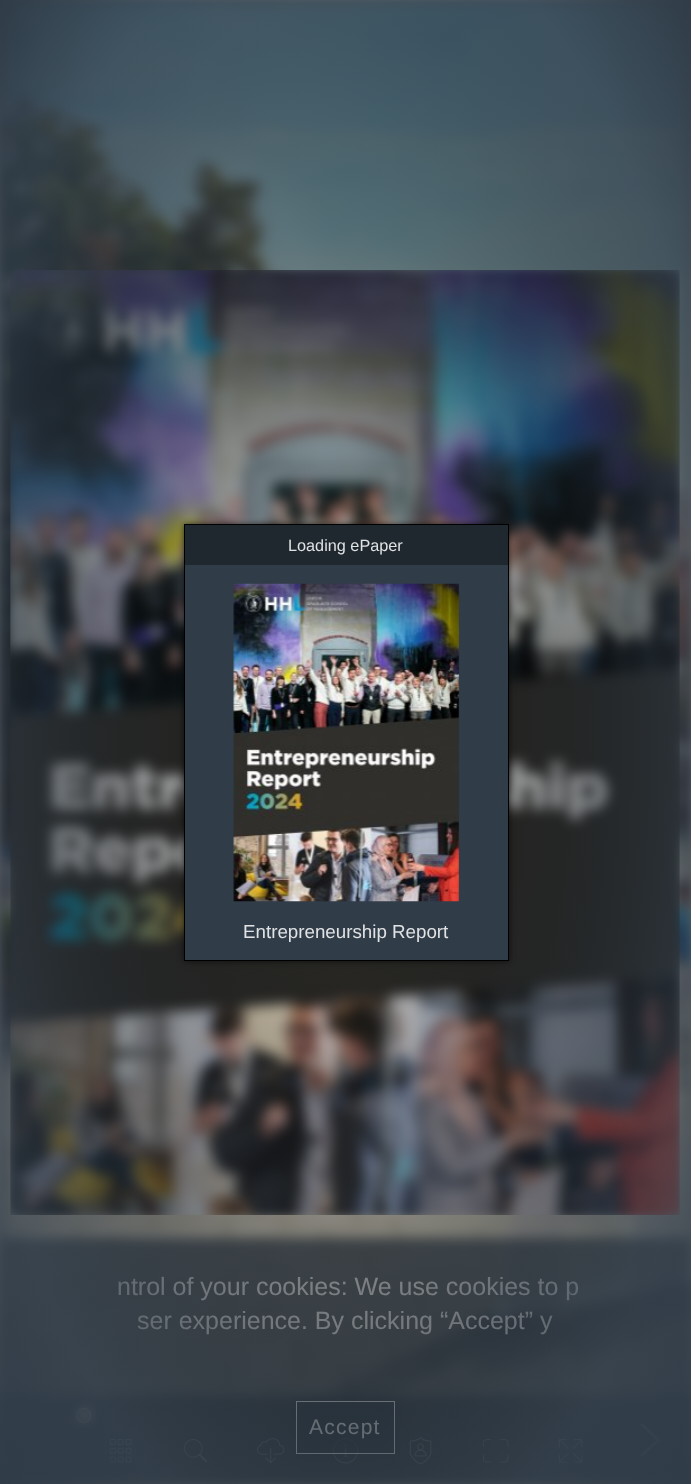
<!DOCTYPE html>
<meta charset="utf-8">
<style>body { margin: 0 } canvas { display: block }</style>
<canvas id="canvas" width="691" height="1484"></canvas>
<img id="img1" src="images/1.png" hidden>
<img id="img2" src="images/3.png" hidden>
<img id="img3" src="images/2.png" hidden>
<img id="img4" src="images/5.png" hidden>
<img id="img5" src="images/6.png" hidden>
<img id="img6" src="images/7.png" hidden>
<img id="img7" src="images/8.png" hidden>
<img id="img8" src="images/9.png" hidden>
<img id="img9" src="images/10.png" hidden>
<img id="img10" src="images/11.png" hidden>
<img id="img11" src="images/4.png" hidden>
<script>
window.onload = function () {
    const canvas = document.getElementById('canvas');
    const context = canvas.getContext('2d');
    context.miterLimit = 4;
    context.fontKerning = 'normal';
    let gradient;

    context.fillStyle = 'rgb(255, 255, 255)';
    context.fillRect(0, 0, 691, 1484);
    context.fillStyle = 'rgb(104, 97, 99)';
    context.filter = 'blur(6px)';
    context.beginPath();
    context.rect(0, 0, 691, 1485);
    context.fill();
    context.filter = 'none';
    context.drawImage(document.getElementById('img1'), 0, 0, 691, 1484);
    context.drawImage(document.getElementById('img2'), 11, 270, 668, 945);
    context.drawImage(document.getElementById('img3'), 10, 270, 670, 945);
    context.fillStyle = 'rgba(48, 60, 72, 0.75)';
    context.filter = 'blur(6px)';
    context.beginPath();
    context.rect(0, 1395, 691, 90);
    context.fill();
    context.filter = 'none';
    context.fillStyle = 'rgb(51, 51, 51)';
    context.filter = 'blur(6px)';
    context.beginPath();
    context.roundRect(76, 1408, 15, 15, 7.5);
    context.fill();
    context.filter = 'none';
    context.beginPath();
    context.arc(83.5, 1415.5, 7, 0, 2 * Math.PI);
    context.strokeStyle = 'rgb(255, 255, 255)';
    context.stroke();
    context.drawImage(document.getElementById('img4'), 109, 1439, 23, 24);
    context.drawImage(document.getElementById('img5'), 183, 1439, 25, 24);
    context.drawImage(document.getElementById('img6'), 257, 1438, 28, 26);
    context.drawImage(document.getElementById('img7'), 332, 1438, 27, 26);
    context.drawImage(document.getElementById('img8'), 409, 1437, 23, 28);
    context.drawImage(document.getElementById('img9'), 482, 1439, 27, 24);
    context.drawImage(document.getElementById('img10'), 558, 1439, 25, 24);
    context.fillStyle = 'rgb(231, 231, 232)';
    context.beginPath();
    context.moveTo(640, 1425);
    context.lineTo(642.5, 1423);
    context.lineTo(661, 1440);
    context.lineTo(642.5, 1457);
    context.lineTo(640, 1455);
    context.lineTo(656.5, 1440);
    context.closePath();
    context.fill();
    context.fillStyle = 'rgba(48, 60, 72, 0.75)';
    context.filter = 'blur(6px)';
    context.beginPath();
    context.rect(0, 1238, 691, 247);
    context.fill();
    context.filter = 'none';
    context.filter = 'blur(6px)';
    context.beginPath();
    context.rect(296, 1401, 99, 53);
    context.fill();
    context.filter = 'none';
    context.strokeStyle = 'rgba(255, 255, 255, 0.85)';
    context.strokeRect(296.5, 1401.5, 98, 52);
    context.fillStyle = 'rgb(255, 255, 255)';
    context.filter = 'blur(6px)';
    context.beginPath();
    context.roundRect(79, 1410, 10, 10, 5);
    context.fill();
    context.filter = 'none';
    context.font = '25px Liberation Sans';
    context.fillStyle = 'rgb(230, 231, 232)';
    context.fillText('ntrol of your cookies: We use cookies to p', 117, 1295);
    context.fillText('ser experience. By clicking “Accept” y', 137, 1329);
    context.letterSpacing = '1.25px';
    context.font = '21px Liberation Sans';
    context.fillStyle = 'rgb(224, 226, 228)';
    context.fillText('Accept', 309, 1434);
    gradient = context.createRadialGradient(346, 346.03, 0, 346, 346.03, 489);
    gradient.addColorStop(0.2, 'rgba(0, 0, 0, 0.2)');
    gradient.addColorStop(0.8, 'rgba(48, 60, 72, 0.8)');
    gradient.addColorStop(1, 'rgb(48, 60, 72)');
    context.fillStyle = gradient;
    context.beginPath();
    context.rect(0, 0, 691, 1484);
    context.save();
    context.clip();
    context.scale(1, 1050 / 489);
    context.fillRect(0, 0, 691, 692);
    context.restore();
    context.fillStyle = 'rgba(0, 0, 0, 0.65)';
    context.filter = 'blur(3px)';
    context.beginPath();
    context.rect(184, 524, 325, 437);
    context.fill();
    context.filter = 'none';
    context.fillStyle = 'rgb(48, 60, 72)';
    context.fillRect(185, 565, 323, 395);
    context.strokeStyle = 'rgb(0, 0, 0)';
    context.strokeRect(184.5, 524.5, 324, 436);
    context.letterSpacing = '0px';
    context.font = '18.75px Liberation Sans';
    context.fillStyle = 'rgb(224, 226, 228)';
    context.fillText('Entrepreneurship Report', 243, 938);
    context.drawImage(document.getElementById('img11'), 233, 583, 227, 319);
    context.fillStyle = 'rgb(31, 39, 47)';
    context.fillRect(185, 525, 323, 40);
    context.font = '16.25px Liberation Sans';
    context.fillStyle = 'rgb(224, 226, 228)';
    context.fillText('Loading ePaper', 288, 551);
};
</script>
